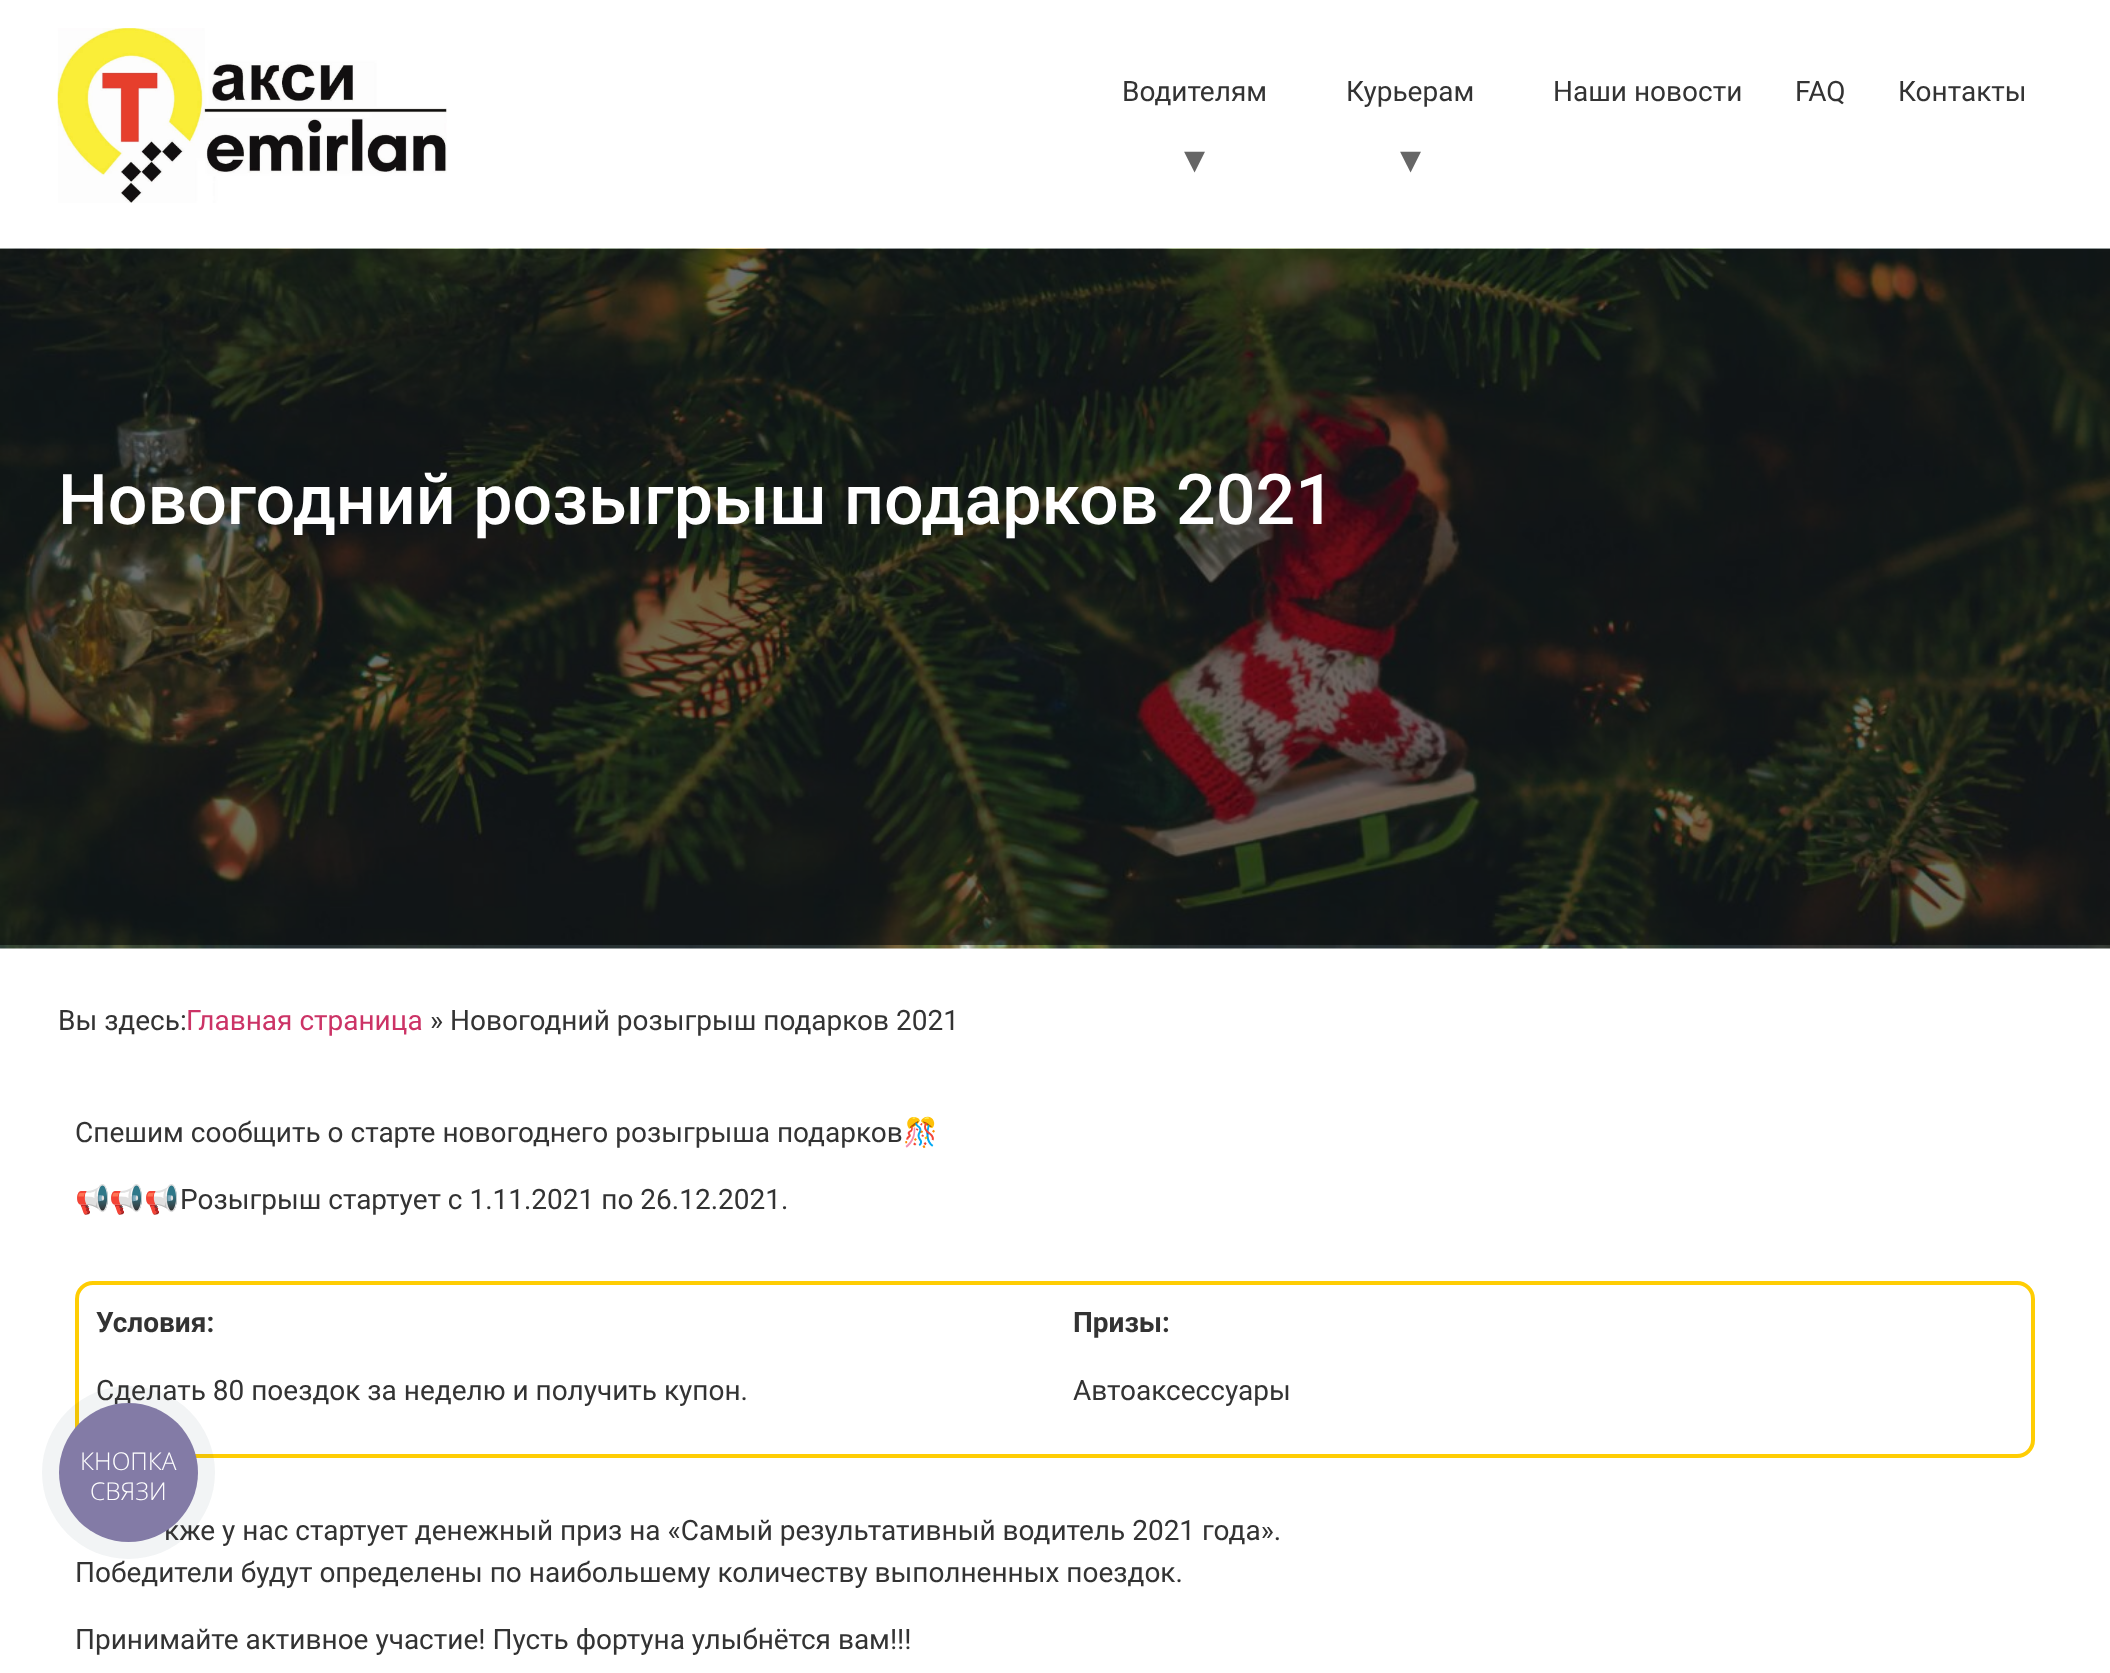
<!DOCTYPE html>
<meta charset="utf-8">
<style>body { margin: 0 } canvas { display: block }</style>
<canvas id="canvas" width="2110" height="1673"></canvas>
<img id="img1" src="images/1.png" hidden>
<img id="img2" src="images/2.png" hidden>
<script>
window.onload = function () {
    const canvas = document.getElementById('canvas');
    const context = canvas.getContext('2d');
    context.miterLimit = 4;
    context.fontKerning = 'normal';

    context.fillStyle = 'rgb(255, 255, 255)';
    context.fillRect(0, 0, 2110, 1673);
    context.drawImage(document.getElementById('img1'), 57, 28, 390, 175);
    context.drawImage(document.getElementById('img2'), 0, 248, 2110, 701);
    context.beginPath();
    context.roundRect(77, 1283, 1956, 173, 16);
    context.strokeStyle = 'rgb(255, 205, 3)';
    context.lineWidth = 4;
    context.stroke();
    context.fillStyle = 'rgba(42, 64, 93, 0.06)';
    context.beginPath();
    context.arc(128.5, 1472.5, 86.5, 0, 2 * Math.PI);
    context.fill();
    context.font = '28px Roboto';
    context.fillStyle = 'rgb(51, 51, 51)';
    context.fillText('Водителям', 1122, 101);
    context.font = '42px DejaVu Sans';
    context.fillStyle = 'rgb(102, 102, 102)';
    context.fillText('▾', 1184, 173);
    context.font = '28px Roboto';
    context.fillStyle = 'rgb(51, 51, 51)';
    context.fillText('Курьерам', 1346, 101);
    context.font = '42px DejaVu Sans';
    context.fillStyle = 'rgb(102, 102, 102)';
    context.fillText('▾', 1400, 173);
    context.font = '28px Roboto';
    context.fillStyle = 'rgb(51, 51, 51)';
    context.fillText('Наши новости', 1553, 101);
    context.fillText('FAQ', 1795, 101);
    context.fillText('Контакты', 1898, 101);
    context.font = '500 70px Roboto';
    context.fillStyle = 'rgb(255, 255, 255)';
    context.fillText('Новогодний розыгрыш подарков 2021', 58, 524);
    context.font = '28px Roboto';
    context.fillStyle = 'rgb(51, 51, 51)';
    context.fillText('Вы здесь:', 58, 1030);
    context.fillStyle = 'rgb(204, 51, 102)';
    context.fillText('Главная страница', 186, 1030);
    context.fillStyle = 'rgb(51, 51, 51)';
    context.fillText('» Новогодний розыгрыш подарков 2021', 430, 1030);
    context.fillText('Спешим сообщить о старте новогоднего розыгрыша подарков', 75, 1142);
    context.font = '28px Noto Color Emoji';
    context.fillText('🎊', 903, 1142);
    context.fillText('📢📢📢', 75, 1209);
    context.font = '28px Roboto';
    context.fillText('Розыгрыш стартует с 1.11.2021 по 26.12.2021.', 180, 1209);
    context.font = 'bold 28px Roboto';
    context.fillText('Условия:', 96, 1332);
    context.font = '28px Roboto';
    context.fillText('Сделать 80 поездок за неделю и получить купон.', 96, 1400);
    context.font = 'bold 28px Roboto';
    context.fillText('Призы:', 1073, 1332);
    context.font = '28px Roboto';
    context.fillText('Автоаксессуары', 1073, 1400);
    context.fillText('кже у нас стартует денежный приз на «Самый результативный водитель 2021 года».', 164, 1540);
    context.fillText('Победители будут определены по наибольшему количеству выполненных поездок.', 75, 1582);
    context.fillText('Принимайте активное участие! Пусть фортуна улыбнётся вам!!!', 75, 1649);
    context.fillStyle = 'rgb(131, 123, 166)';
    context.beginPath();
    context.arc(128.5, 1472.5, 69.5, 0, 2 * Math.PI);
    context.fill();
    context.font = '300 24.5px Open Sans';
    context.fillStyle = 'rgb(255, 255, 255)';
    context.fillText('КНОПКА', 80, 1470);
    context.fillText('СВЯЗИ', 90, 1500);
};
</script>
